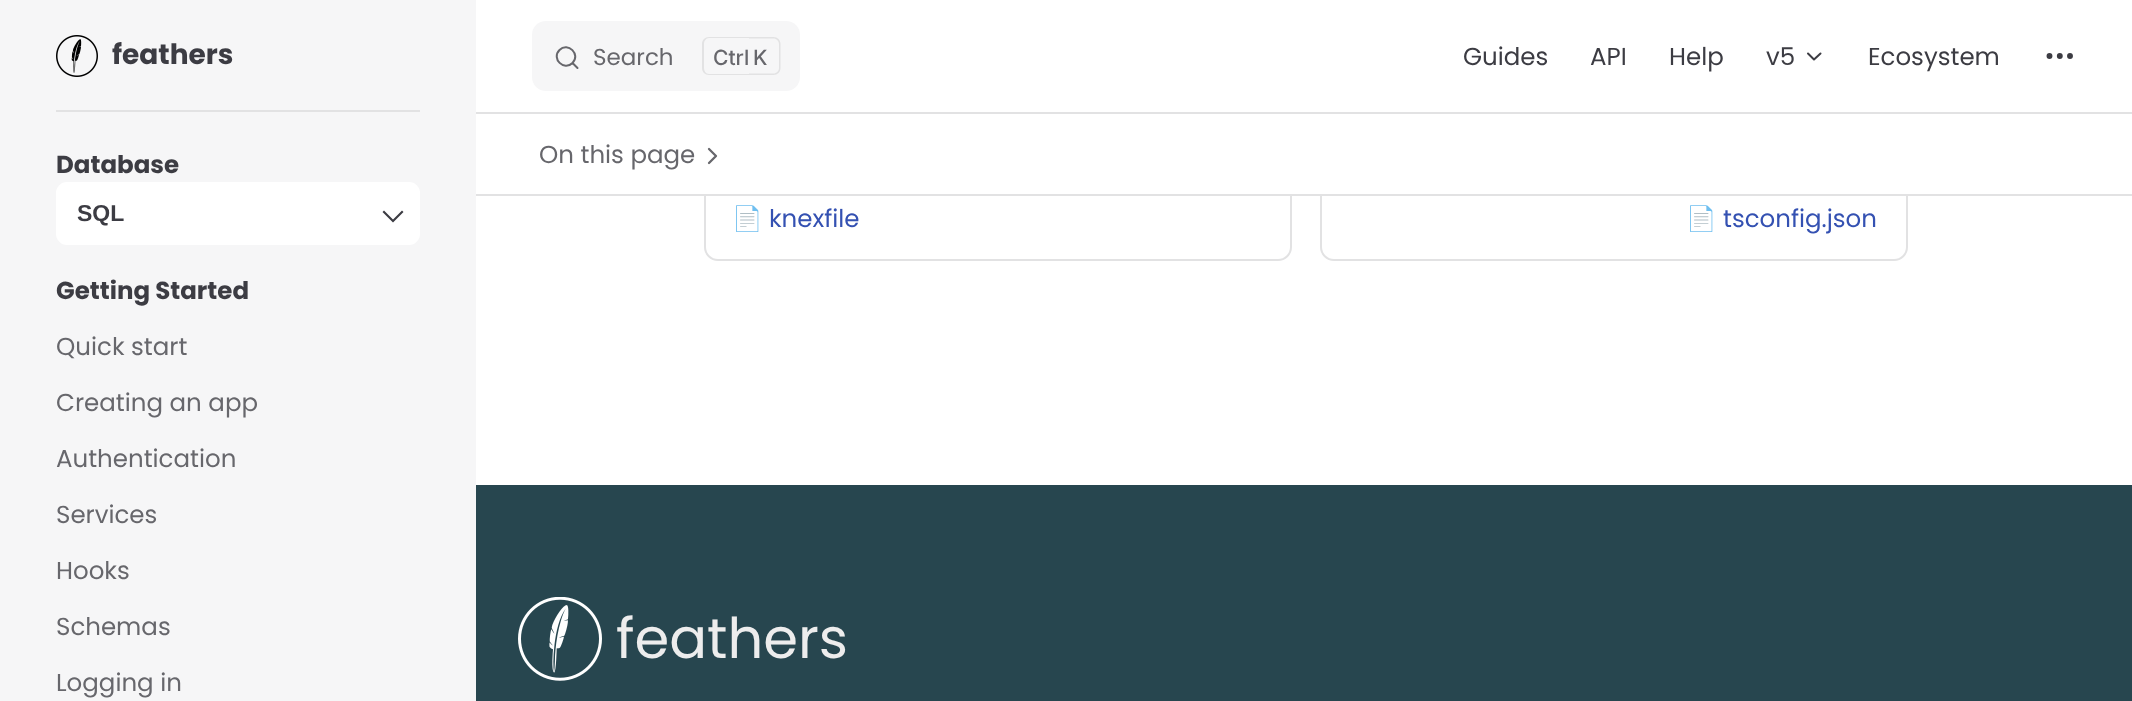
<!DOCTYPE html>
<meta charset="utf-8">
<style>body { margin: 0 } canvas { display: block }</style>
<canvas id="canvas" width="2132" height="701"></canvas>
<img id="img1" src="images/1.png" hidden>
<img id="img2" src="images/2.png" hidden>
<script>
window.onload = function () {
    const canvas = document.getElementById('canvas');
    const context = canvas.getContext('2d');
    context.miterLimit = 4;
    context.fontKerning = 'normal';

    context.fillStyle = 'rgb(255, 255, 255)';
    context.fillRect(0, 0, 2132, 701);
    context.fillStyle = 'rgb(246, 246, 247)';
    context.fillRect(0, 0, 476, 701);
    context.fillStyle = 'rgb(226, 226, 227)';
    context.fillRect(56, 110, 364, 2);
    context.drawImage(document.getElementById('img1'), 56, 35, 42, 42);
    context.fillStyle = 'rgb(246, 246, 247)';
    context.beginPath();
    context.roundRect(532, 21, 268, 70, 14);
    context.fill();
    context.beginPath();
    context.moveTo(572.5, 63);
    context.lineTo(577.5, 68);
    context.lineTo(572.5, 63);
    context.bezierCurveTo(564, 71.5, 551, 58.5, 559.5, 50);
    context.bezierCurveTo(568, 41.5, 581, 54.5, 572.5, 63);
    context.closePath();
    context.strokeStyle = 'rgb(103, 103, 108)';
    context.lineWidth = 2;
    context.lineCap = 'round';
    context.lineJoin = 'round';
    context.stroke();
    context.fillStyle = 'rgb(226, 226, 227)';
    context.beginPath();
    context.moveTo(709, 37);
    context.lineTo(749, 37);
    context.lineTo(749, 75);
    context.lineTo(709, 75);
    context.bezierCurveTo(705, 75, 702, 72, 702, 68);
    context.lineTo(702, 44);
    context.bezierCurveTo(702, 40, 705, 37, 709, 37);
    context.closePath();
    context.moveTo(709, 38);
    context.lineTo(749, 38);
    context.lineTo(749, 74);
    context.lineTo(709, 74);
    context.bezierCurveTo(706, 74, 704, 71, 704, 68);
    context.lineTo(704, 44);
    context.bezierCurveTo(704, 41, 706, 38, 709, 38);
    context.closePath();
    context.fill('evenodd');
    context.beginPath();
    context.moveTo(749, 37);
    context.lineTo(773.5, 37);
    context.bezierCurveTo(777.5, 37, 780.5, 40, 780.5, 44);
    context.lineTo(780.5, 68);
    context.bezierCurveTo(780.5, 72, 777.5, 75, 773.5, 75);
    context.lineTo(749, 75);
    context.closePath();
    context.moveTo(749, 38.5);
    context.lineTo(773.5, 38.5);
    context.bezierCurveTo(776.5, 38.5, 779, 41, 779, 44);
    context.lineTo(779, 68);
    context.bezierCurveTo(779, 71, 776.5, 73.5, 773.5, 73.5);
    context.lineTo(749, 73.5);
    context.closePath();
    context.fill('evenodd');
    context.beginPath();
    context.moveTo(1808, 53.5);
    context.lineTo(1814, 59.5);
    context.lineTo(1820.5, 53.5);
    context.strokeStyle = 'rgb(60, 60, 67)';
    context.stroke();
    context.beginPath();
    context.arc(2059.8, 56, 1.5, 0, 2 * Math.PI);
    context.lineWidth = 2.9;
    context.stroke();
    context.beginPath();
    context.arc(2070, 56, 1.5, 0, 2 * Math.PI);
    context.stroke();
    context.beginPath();
    context.arc(2049.5, 56, 1.5, 0, 2 * Math.PI);
    context.stroke();
    context.fillRect(476, 112, 1656, 2);
    context.fillStyle = 'rgb(255, 255, 255)';
    context.beginPath();
    context.roundRect(56, 182, 364, 63, 11);
    context.fill();
    context.fillStyle = 'rgb(60, 60, 67)';
    context.beginPath();
    context.moveTo(393, 222.5);
    context.lineTo(382.5, 212);
    context.lineTo(384, 210.5);
    context.lineTo(393, 219.5);
    context.lineTo(402, 210.5);
    context.lineTo(403.5, 212);
    context.closePath();
    context.fill();
    context.beginPath();
    context.roundRect(705, 146, 586, 114, 13);
    context.strokeStyle = 'rgb(226, 226, 227)';
    context.lineWidth = 2;
    context.lineJoin = 'miter';
    context.stroke();
    context.beginPath();
    context.roundRect(1321, 146, 586, 114, 13);
    context.stroke();
    context.fillStyle = 'rgb(255, 255, 255)';
    context.fillRect(704, 145, 1204, 49);
    context.fillStyle = 'rgb(226, 226, 227)';
    context.fillRect(476, 194, 1656, 2);
    context.beginPath();
    context.moveTo(709, 163);
    context.lineTo(716, 156);
    context.lineTo(709, 149);
    context.strokeStyle = 'rgb(103, 103, 108)';
    context.lineWidth = 2.3;
    context.lineJoin = 'round';
    context.stroke();
    context.fillStyle = 'rgb(39, 70, 79)';
    context.fillRect(476, 485, 1656, 216);
    context.drawImage(document.getElementById('img2'), 518, 597, 84, 84);
    context.font = 'bold 28px Poppins';
    context.fillStyle = 'rgb(60, 60, 67)';
    context.fillText('feathers', 112, 64);
    context.font = '23px Poppins';
    context.fillStyle = 'rgb(103, 103, 108)';
    context.fillText('Search', 593, 65);
    context.font = '500 21px Inter';
    context.fillText('Ctrl', 713, 65);
    context.fillText('K', 753, 65);
    context.font = '24.5px Poppins';
    context.fillStyle = 'rgb(60, 60, 67)';
    context.fillText('Guides', 1463, 65);
    context.fillText('API', 1590, 65);
    context.fillText('Help', 1669, 65);
    context.fillText('v5', 1766, 65);
    context.fillText('Ecosystem', 1868, 65);
    context.font = 'bold 24.5px Poppins';
    context.fillText('Database', 56, 173);
    context.font = 'bold 23px Liberation Sans';
    context.fillText('SQL', 77, 221);
    context.font = 'bold 24.5px Poppins';
    context.fillText('Getting Started', 56, 299);
    context.font = '24.5px Poppins';
    context.fillStyle = 'rgb(103, 103, 108)';
    context.fillText('Quick start', 56, 355);
    context.fillText('Creating an app', 56, 411);
    context.fillText('Authentication', 56, 467);
    context.fillText('Services', 56, 523);
    context.fillText('Hooks', 56, 579);
    context.fillText('Schemas', 56, 635);
    context.fillText('Logging in', 56, 691);
    context.fillText('On this page', 539, 163);
    context.font = '24.5px Noto Color Emoji';
    context.fillStyle = 'rgb(52, 81, 178)';
    context.fillText('📄', 732, 227);
    context.font = '24.5px Poppins';
    context.fillText('knexfile', 769, 227);
    context.font = '24.5px Noto Color Emoji';
    context.fillText('📄', 1686, 227);
    context.font = '24.5px Poppins';
    context.fillText('tsconfig.json', 1723, 227);
    context.font = '56px Poppins';
    context.fillStyle = 'rgb(237, 237, 237)';
    context.fillText('feathers', 616, 658);
};
</script>
